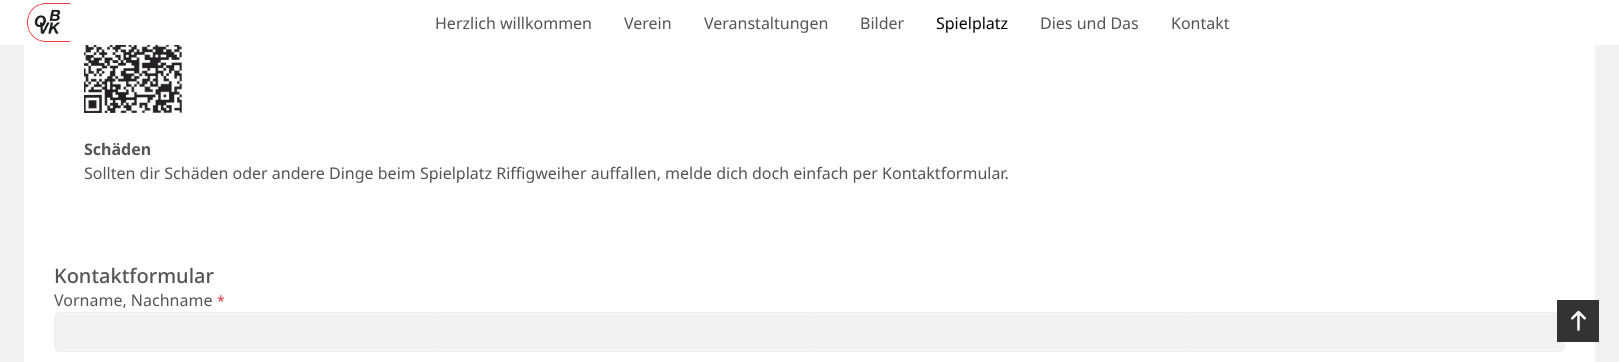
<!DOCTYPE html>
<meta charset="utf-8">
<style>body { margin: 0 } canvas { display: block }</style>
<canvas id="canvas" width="1619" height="362"></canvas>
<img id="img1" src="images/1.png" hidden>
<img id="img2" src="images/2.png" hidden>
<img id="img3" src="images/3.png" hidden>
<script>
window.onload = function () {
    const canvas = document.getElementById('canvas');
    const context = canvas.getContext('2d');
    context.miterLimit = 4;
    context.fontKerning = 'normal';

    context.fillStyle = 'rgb(242, 242, 242)';
    context.fillRect(0, 0, 1619, 362);
    context.fillStyle = 'rgb(255, 255, 255)';
    context.fillRect(0, 0, 1619, 45);
    context.drawImage(document.getElementById('img1'), 27, 3, 43, 39);
    context.fillRect(24, 45, 1571, 317);
    context.drawImage(document.getElementById('img2'), 84, 45, 98, 68);
    context.fillStyle = 'rgb(242, 242, 242)';
    context.beginPath();
    context.roundRect(54.5, 312.5, 1510, 39, 5.5);
    context.fill();
    context.strokeStyle = 'rgb(238, 238, 238)';
    context.stroke();
    context.fillStyle = 'rgb(51, 51, 51)';
    context.fillRect(1557, 300, 42, 42);
    context.drawImage(document.getElementById('img3'), 1571, 310, 15, 21);
    context.font = '16px Noto Sans';
    context.fillStyle = 'rgb(85, 85, 85)';
    context.fillText('Herzlich willkommen', 435, 29);
    context.fillText('Verein', 624, 29);
    context.fillText('Veranstaltungen', 704, 29);
    context.fillText('Bilder', 860, 29);
    context.fillStyle = 'rgb(0, 0, 0)';
    context.fillText('Spielplatz', 936, 29);
    context.fillStyle = 'rgb(85, 85, 85)';
    context.fillText('Dies und Das', 1040, 29);
    context.fillText('Kontakt', 1171, 29);
    context.font = 'bold 16px Noto Sans';
    context.fillText('Schäden', 84, 155);
    context.font = '16px Noto Sans';
    context.fillText('Sollten dir Schäden oder andere Dinge beim Spielplatz Riffigweiher auffallen, melde dich doch einfach per Kontaktformular.', 84, 179);
    context.font = '500 20px Noto Sans';
    context.fillText('Kontaktformular', 54, 283);
    context.font = '16px Noto Sans';
    context.fillText('Vorname, Nachname', 54, 306);
    context.font = '14px Noto Sans';
    context.fillStyle = 'rgb(220, 53, 69)';
    context.fillText('*', 217, 306);
};
</script>
